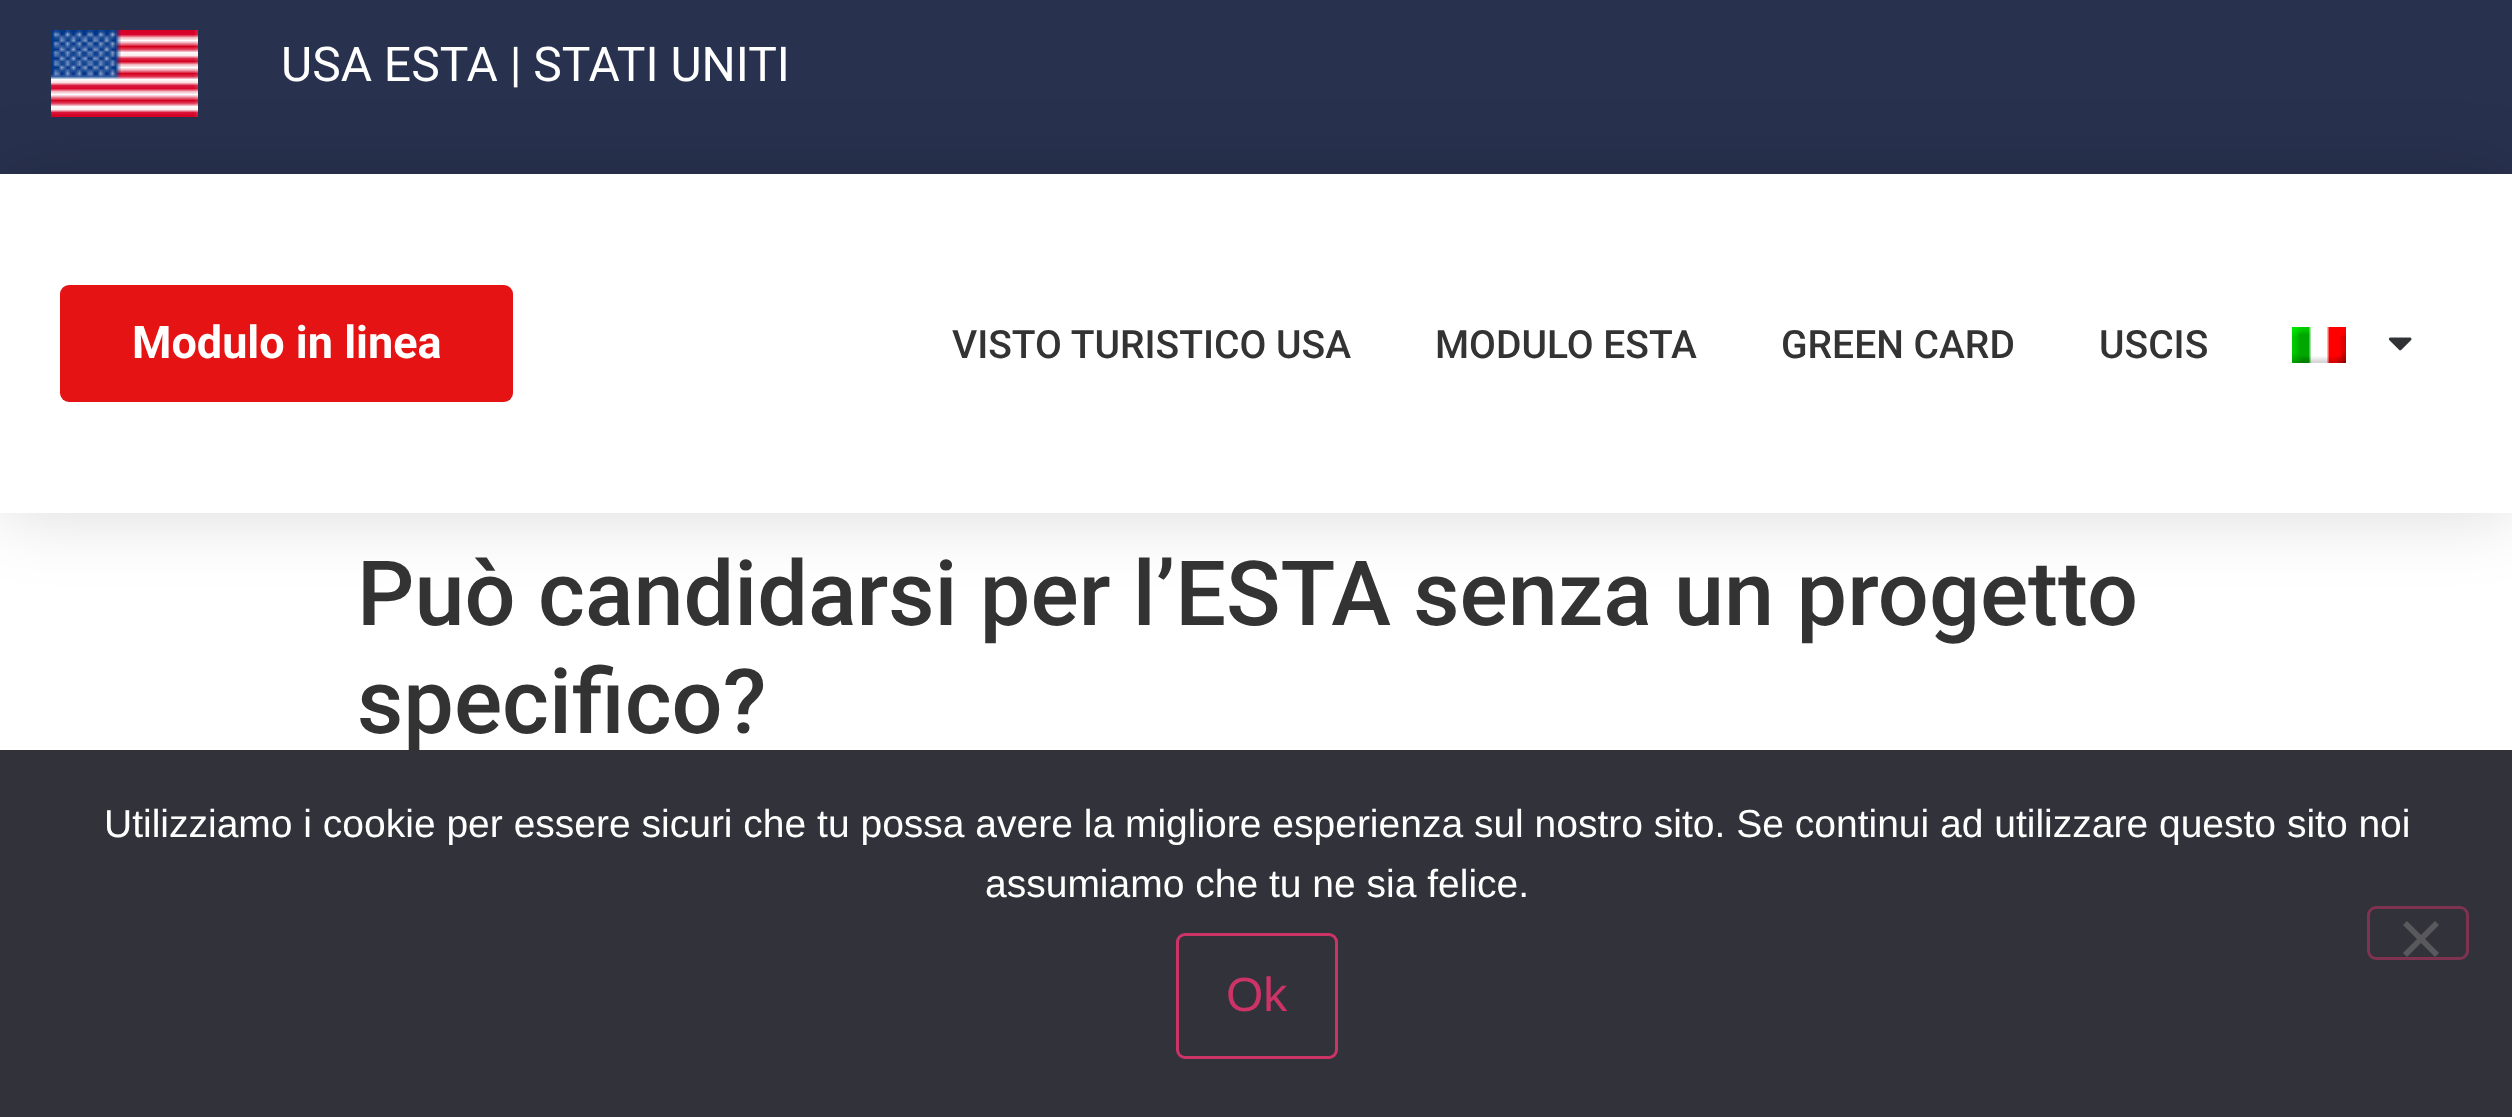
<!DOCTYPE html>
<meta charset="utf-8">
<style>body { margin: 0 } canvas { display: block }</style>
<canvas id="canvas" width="2512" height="1117"></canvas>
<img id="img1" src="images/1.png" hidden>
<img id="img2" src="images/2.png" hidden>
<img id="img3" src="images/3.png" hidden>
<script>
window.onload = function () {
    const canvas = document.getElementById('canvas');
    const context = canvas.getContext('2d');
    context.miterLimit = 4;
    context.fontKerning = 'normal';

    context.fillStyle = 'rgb(255, 255, 255)';
    context.fillRect(0, 0, 2512, 1117);
    context.fillStyle = 'rgb(40, 49, 78)';
    context.fillRect(0, 0, 2512, 174);
    context.drawImage(document.getElementById('img1'), 51, 30, 147, 87);
    context.save();
    context.beginPath();
    context.moveTo(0, 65);
    context.lineTo(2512, 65);
    context.lineTo(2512, 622);
    context.lineTo(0, 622);
    context.closePath();
    context.moveTo(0, 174);
    context.lineTo(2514, 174);
    context.lineTo(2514, 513);
    context.lineTo(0, 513);
    context.closePath();
    context.clip('evenodd');
    context.fillStyle = 'rgba(0, 0, 0, 0.15)';
    context.filter = 'blur(36px)';
    context.beginPath();
    context.rect(0, 174, 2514, 339);
    context.fill();
    context.filter = 'none';
    context.restore();
    context.fillStyle = 'rgb(229, 19, 19)';
    context.beginPath();
    context.roundRect(60, 285, 453, 117, 9);
    context.fill();
    context.drawImage(document.getElementById('img2'), 2292, 327, 54, 36);
    context.drawImage(document.getElementById('img3'), 2388, 337, 24, 14);
    context.font = '48px Roboto';
    context.fillStyle = 'rgb(255, 255, 255)';
    context.fillText('USA ESTA | STATI UNITI', 281, 81);
    context.font = 'bold 45px Roboto';
    context.fillText('Modulo in linea', 132, 358);
    context.font = '500 39px Roboto';
    context.fillStyle = 'rgb(51, 51, 51)';
    context.fillText('VISTO TURISTICO USA', 952, 358);
    context.fillText('MODULO ESTA', 1435, 358);
    context.fillText('GREEN CARD', 1781, 358);
    context.fillText('USCIS', 2099, 358);
    context.font = '500 90px Roboto';
    context.fillText('Può candidarsi per l’ESTA senza un progetto', 357, 625);
    context.fillText('specifico?', 357, 733);
    context.fillStyle = 'rgb(50, 50, 58)';
    context.fillRect(0, 750, 2512, 367);
    context.font = '39px Liberation Sans';
    context.fillStyle = 'rgb(255, 255, 255)';
    context.fillText('Utilizziamo i cookie per essere sicuri che tu possa avere la migliore esperienza sul nostro sito. Se continui ad utilizzare questo sito noi', 104, 837);
    context.fillText('assumiamo che tu ne sia felice.', 985, 897);
    context.beginPath();
    context.roundRect(2368.5, 907.5, 99, 51, 7.5);
    context.strokeStyle = 'rgb(127, 51, 80)';
    context.lineWidth = 3;
    context.stroke();
    context.fillStyle = 'rgb(89, 89, 93)';
    context.beginPath();
    context.moveTo(2435, 921);
    context.lineTo(2439, 925);
    context.lineTo(2407, 957);
    context.lineTo(2403, 953);
    context.closePath();
    context.fill();
    context.beginPath();
    context.moveTo(2403, 925);
    context.lineTo(2407, 921);
    context.lineTo(2439, 953);
    context.lineTo(2435, 957);
    context.closePath();
    context.fill();
    context.beginPath();
    context.roundRect(1177.5, 934.5, 159, 123, 7.5);
    context.strokeStyle = 'rgb(204, 51, 102)';
    context.stroke();
    context.font = '48px Liberation Sans';
    context.fillStyle = 'rgb(204, 51, 102)';
    context.fillText('Ok', 1226, 1011);
};
</script>
